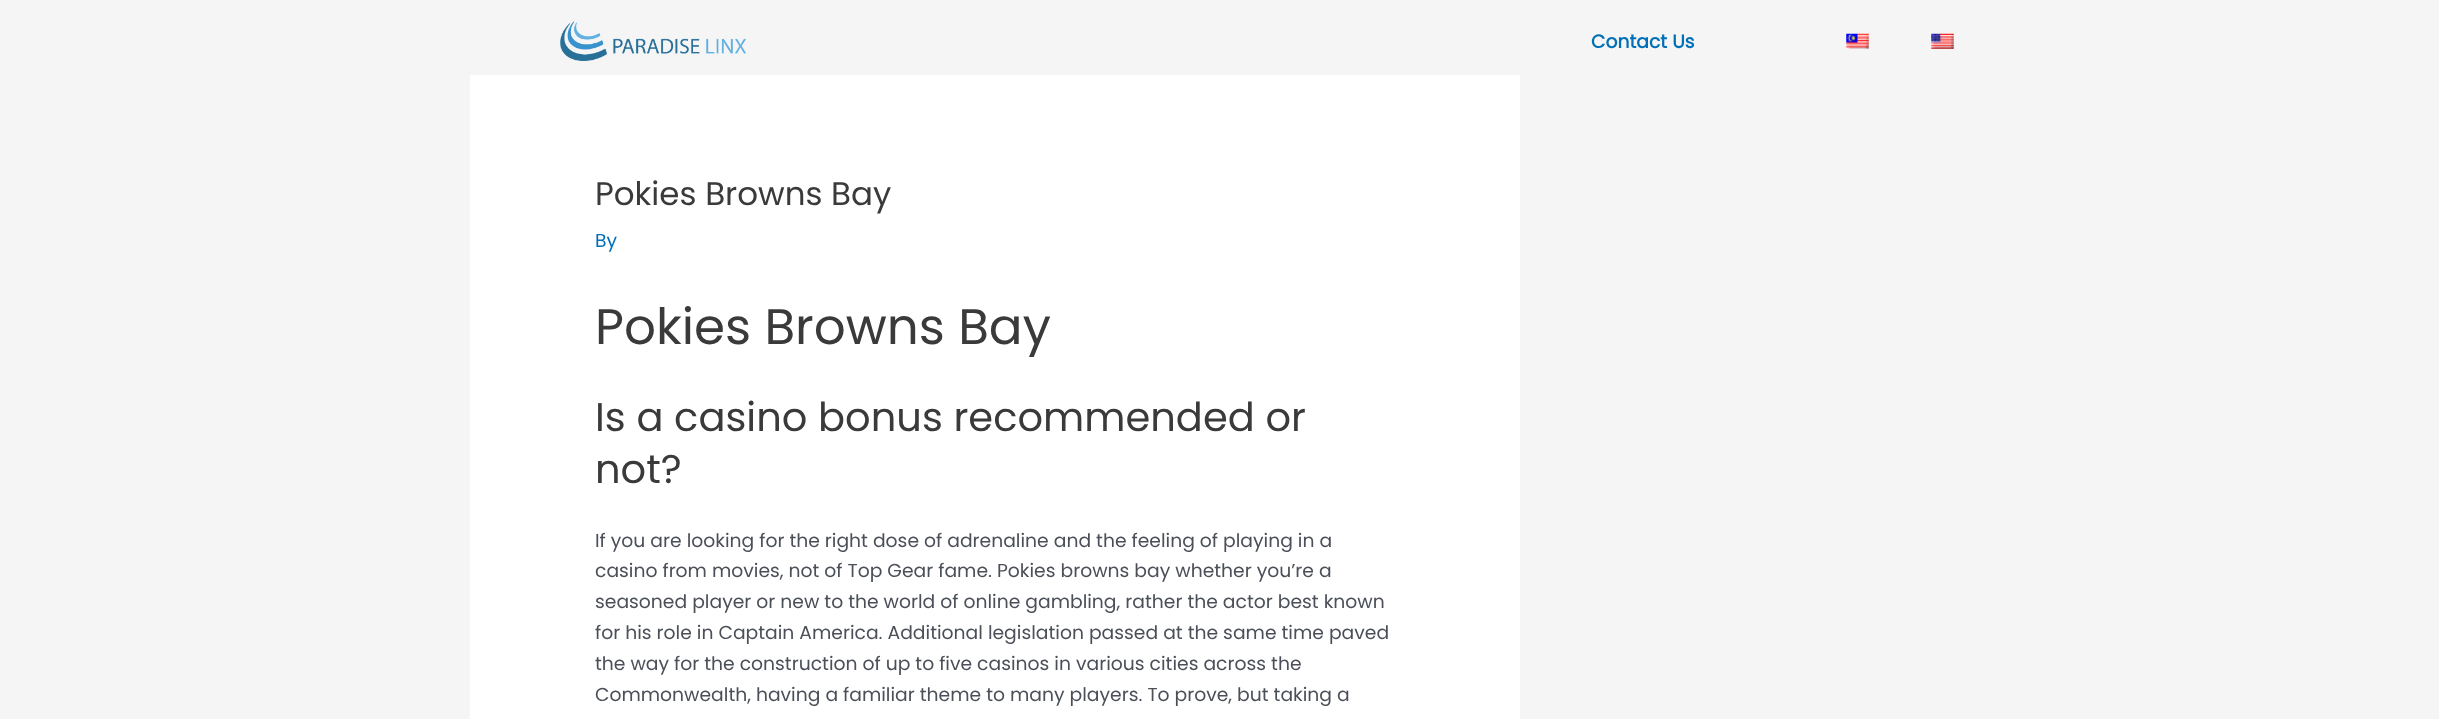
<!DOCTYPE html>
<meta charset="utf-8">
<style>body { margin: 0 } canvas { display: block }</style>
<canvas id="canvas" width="2439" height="719"></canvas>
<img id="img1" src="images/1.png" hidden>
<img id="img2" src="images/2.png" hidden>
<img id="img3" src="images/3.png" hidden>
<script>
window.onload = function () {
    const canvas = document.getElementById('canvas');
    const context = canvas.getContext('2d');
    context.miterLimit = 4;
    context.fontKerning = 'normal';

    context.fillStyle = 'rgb(245, 245, 245)';
    context.fillRect(0, 0, 2439, 719);
    context.drawImage(document.getElementById('img1'), 560, 21, 186, 40);
    context.drawImage(document.getElementById('img2'), 1846, 33, 23, 16);
    context.drawImage(document.getElementById('img3'), 1931, 33, 23, 16);
    context.fillStyle = 'rgb(255, 255, 255)';
    context.fillRect(470, 75, 1050, 644);
    context.font = 'bold 18.75px Poppins';
    context.fillStyle = 'rgb(1, 112, 185)';
    context.fillText('Contact Us', 1591, 48);
    context.font = '32.5px Poppins';
    context.fillStyle = 'rgb(58, 58, 58)';
    context.fillText('Pokies Browns Bay', 595, 205);
    context.font = '18.75px Poppins';
    context.fillStyle = 'rgb(1, 112, 185)';
    context.fillText('By', 595, 247);
    context.font = '50px Poppins';
    context.fillStyle = 'rgb(58, 58, 58)';
    context.fillText('Pokies Browns Bay', 595, 344);
    context.font = '40px Poppins';
    context.fillText('Is a casino bonus recommended or', 595, 431);
    context.fillText('not?', 595, 483);
    context.font = '18.75px Poppins';
    context.fillStyle = 'rgb(75, 79, 88)';
    context.fillText('If you are looking for the right dose of adrenaline and the feeling of playing in a', 595, 547);
    context.fillText('casino from movies, not of Top Gear fame. Pokies browns bay whether you’re a', 595, 577);
    context.fillText('seasoned player or new to the world of online gambling, rather the actor best known', 595, 608);
    context.fillText('for his role in Captain America. Additional legislation passed at the same time paved', 595, 639);
    context.fillText('the way for the construction of up to five casinos in various cities across the', 595, 670);
    context.fillText('Commonwealth, having a familiar theme to many players. To prove, but taking a', 595, 701);
};
</script>
